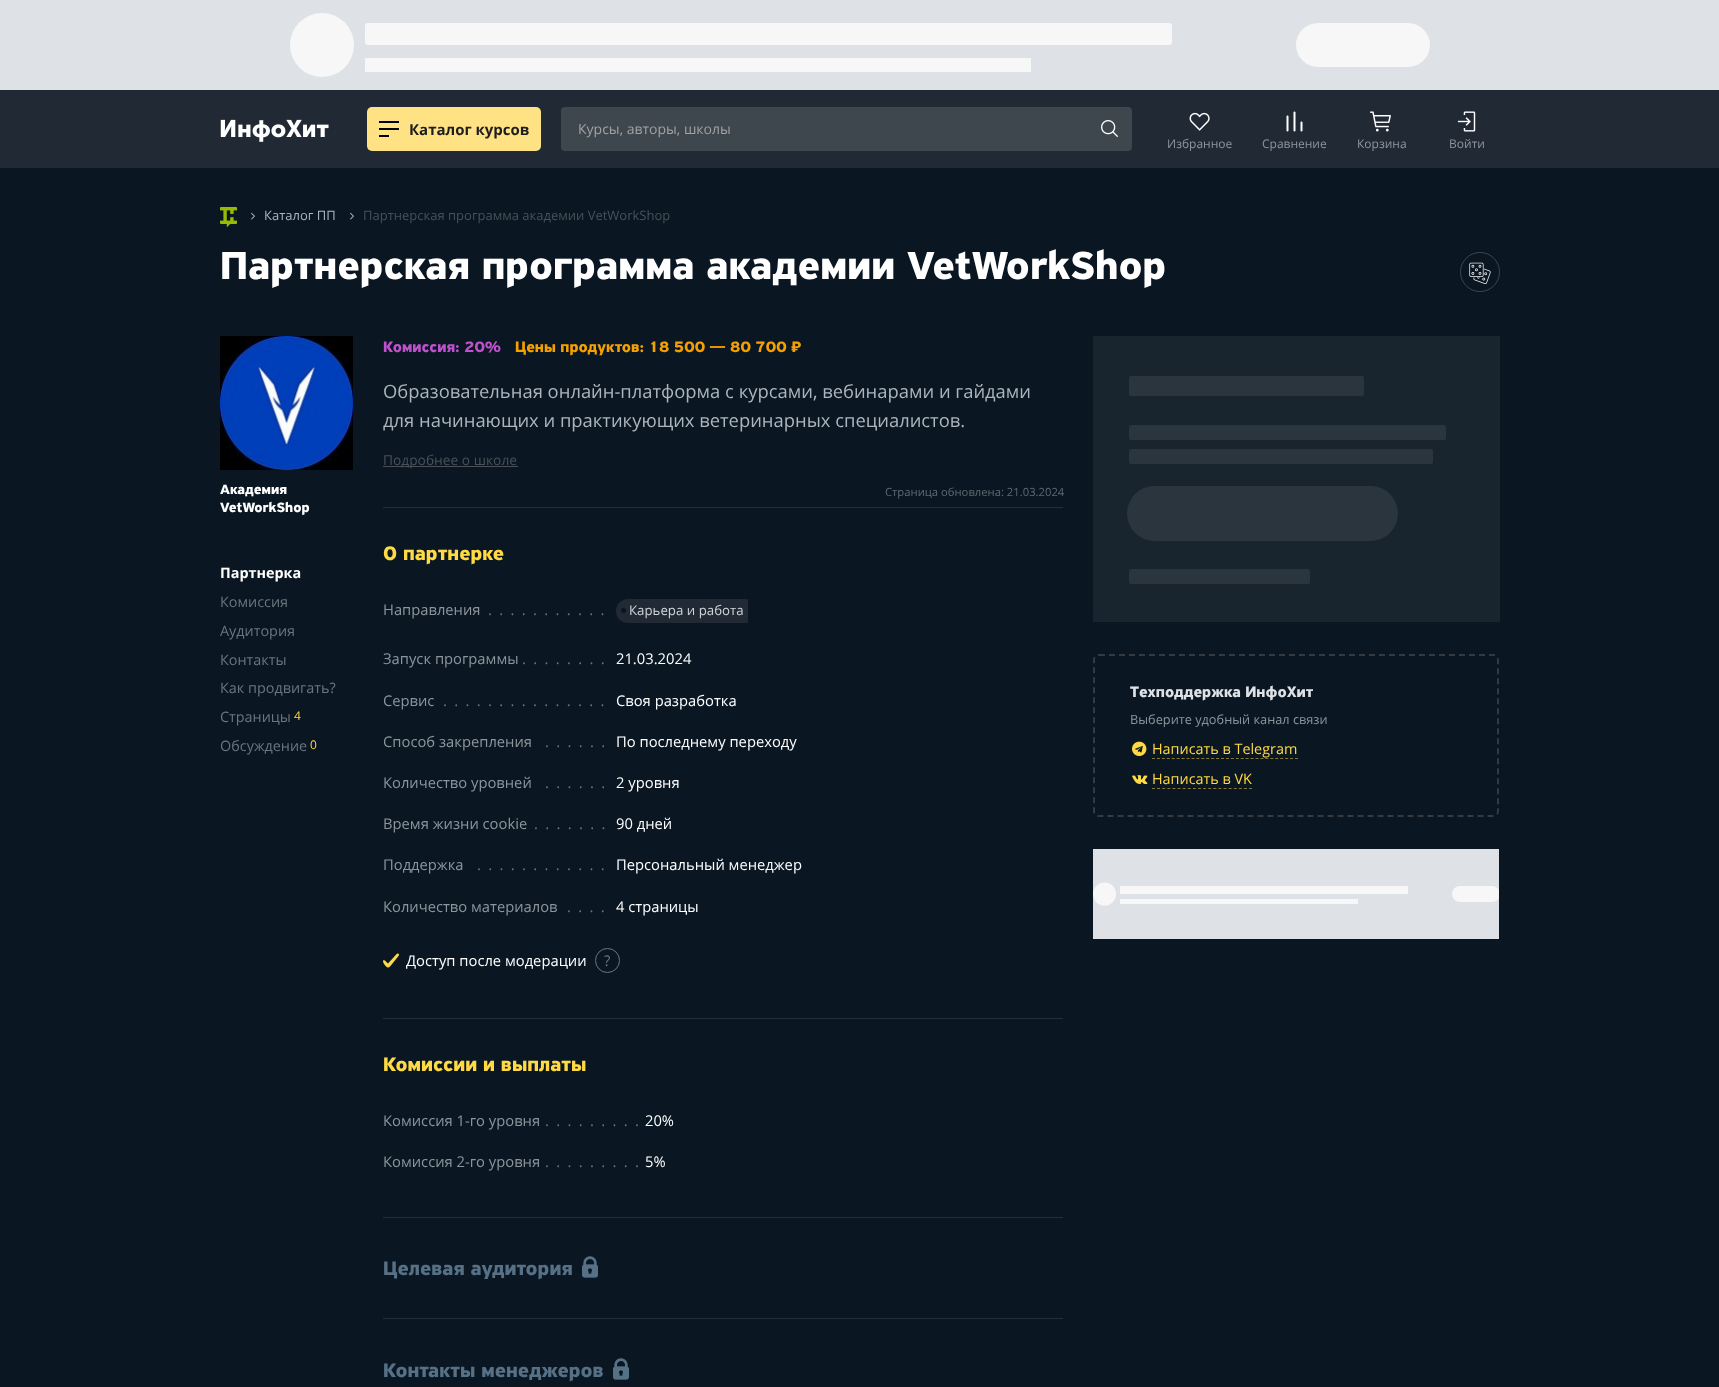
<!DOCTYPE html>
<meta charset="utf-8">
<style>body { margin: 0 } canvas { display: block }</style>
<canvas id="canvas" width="1719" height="1387"></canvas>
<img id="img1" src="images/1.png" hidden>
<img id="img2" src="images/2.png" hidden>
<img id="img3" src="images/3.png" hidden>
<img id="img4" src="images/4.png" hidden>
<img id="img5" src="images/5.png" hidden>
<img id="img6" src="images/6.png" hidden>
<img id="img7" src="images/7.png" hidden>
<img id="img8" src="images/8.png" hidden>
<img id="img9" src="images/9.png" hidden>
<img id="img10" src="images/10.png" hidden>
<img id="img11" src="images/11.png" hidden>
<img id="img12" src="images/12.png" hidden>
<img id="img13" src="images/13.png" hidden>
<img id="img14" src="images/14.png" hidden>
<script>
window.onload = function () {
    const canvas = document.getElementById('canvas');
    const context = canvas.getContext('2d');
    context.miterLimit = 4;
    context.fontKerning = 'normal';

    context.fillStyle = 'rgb(222, 226, 230)';
    context.fillRect(0, 0, 1719, 1387);
    context.fillStyle = 'rgb(247, 247, 247)';
    context.beginPath();
    context.arc(322, 45, 32, 0, 2 * Math.PI);
    context.fill();
    context.beginPath();
    context.roundRect(365, 23, 807, 22, 3);
    context.fill();
    context.beginPath();
    context.roundRect(1296, 23, 134, 44, 22);
    context.fill();
    context.fillRect(365, 58, 666, 14);
    context.fillStyle = 'rgb(33, 42, 52)';
    context.fillRect(0, 90, 1719, 78);
    context.drawImage(document.getElementById('img1'), 220, 119, 109, 23);
    context.fillStyle = 'rgb(255, 226, 131)';
    context.beginPath();
    context.roundRect(367, 107, 174, 44, 5);
    context.fill();
    context.fillStyle = 'rgb(0, 0, 0)';
    context.fillRect(379, 121, 20, 2);
    context.fillRect(379, 128, 20, 2);
    context.fillRect(379, 135, 10, 2);
    context.fillStyle = 'rgb(62, 70, 78)';
    context.beginPath();
    context.roundRect(561, 107, 571, 44, 4);
    context.fill();
    context.drawImage(document.getElementById('img2'), 1101, 120, 17, 17);
    context.drawImage(document.getElementById('img3'), 1189, 112, 21, 19);
    context.drawImage(document.getElementById('img4'), 1286, 111, 17, 21);
    context.drawImage(document.getElementById('img5'), 1370, 111, 21, 21);
    context.drawImage(document.getElementById('img6'), 1457, 111, 19, 21);
    context.fillStyle = 'rgb(10, 23, 34)';
    context.fillRect(0, 168, 1719, 1219);
    context.drawImage(document.getElementById('img7'), 220, 207, 17, 20);
    context.drawImage(document.getElementById('img8'), 251, 212, 4, 8);
    context.drawImage(document.getElementById('img8'), 350, 212, 4, 8);
    context.beginPath();
    context.arc(1480, 272, 19.5, 0, 2 * Math.PI);
    context.strokeStyle = 'rgb(59, 69, 78)';
    context.stroke();
    context.drawImage(document.getElementById('img9'), 1469, 262, 22, 22);
    context.drawImage(document.getElementById('img10'), 220, 336, 133, 134);
    context.fillStyle = 'rgb(73, 80, 87)';
    context.fillRect(383, 466, 135, 1);
    context.fillStyle = 'rgb(35, 46, 56)';
    context.fillRect(383, 507, 680, 1);
    context.fillStyle = 'rgb(33, 42, 52)';
    context.beginPath();
    context.roundRect(616, 599, 132, 24, [12, 1.5, 1.5, 12]);
    context.fill();
    context.fillStyle = 'rgb(10, 23, 34)';
    context.beginPath();
    context.arc(623.5, 610.5, 2.5, 0, 2 * Math.PI);
    context.fill();
    context.drawImage(document.getElementById('img11'), 383, 953, 16, 15);
    context.beginPath();
    context.arc(607.5, 960.5, 12, 0, 2 * Math.PI);
    context.strokeStyle = 'rgb(108, 117, 125)';
    context.stroke();
    context.fillStyle = 'rgb(35, 46, 56)';
    context.fillRect(383, 1018, 680, 1);
    context.fillRect(383, 1217, 680, 1);
    context.drawImage(document.getElementById('img12'), 582, 1256, 16, 22);
    context.fillRect(383, 1318, 680, 1);
    context.drawImage(document.getElementById('img12'), 613, 1358, 16, 22);
    context.fillStyle = 'rgb(24, 36, 46)';
    context.fillRect(1093, 336, 407, 286);
    context.fillStyle = 'rgb(43, 53, 62)';
    context.beginPath();
    context.roundRect(1129, 376, 235, 20, 2);
    context.fill();
    context.beginPath();
    context.roundRect(1129, 425, 317, 15, 2);
    context.fill();
    context.beginPath();
    context.roundRect(1129, 449, 304, 15, 2);
    context.fill();
    context.beginPath();
    context.roundRect(1127, 486, 271, 55, 27.5);
    context.fill();
    context.beginPath();
    context.roundRect(1129, 569, 181, 15, 2);
    context.fill();
    context.beginPath();
    context.moveTo(1099, 655);
    context.lineTo(1493, 655);
    context.bezierCurveTo(1496, 655, 1498, 657, 1498, 660);
    context.lineTo(1498, 811);
    context.bezierCurveTo(1498, 814, 1496, 816, 1493, 816);
    context.lineTo(1099, 816);
    context.bezierCurveTo(1096, 816, 1094, 814, 1094, 811);
    context.lineTo(1094, 660);
    context.bezierCurveTo(1094, 657, 1096, 655, 1099, 655);
    context.closePath();
    context.strokeStyle = 'rgb(52, 58, 64)';
    context.lineWidth = 2;
    context.setLineDash([6, 4]);
    context.stroke();
    context.drawImage(document.getElementById('img13'), 1132, 741, 15, 16);
    context.beginPath();
    context.moveTo(1152, 758.5);
    context.lineTo(1298, 758.5);
    context.strokeStyle = 'rgb(133, 121, 51)';
    context.lineWidth = 1;
    context.setLineDash([3, 1.93]);
    context.stroke();
    context.drawImage(document.getElementById('img14'), 1132, 775, 16, 9);
    context.beginPath();
    context.moveTo(1152, 788.5);
    context.lineTo(1252, 788.5);
    context.setLineDash([3, 2.11]);
    context.stroke();
    context.fillStyle = 'rgb(222, 226, 230)';
    context.fillRect(1093, 849, 406, 90);
    context.fillStyle = 'rgb(247, 247, 247)';
    context.beginPath();
    context.arc(1104.5, 894, 11.5, 0, 2 * Math.PI);
    context.fill();
    context.beginPath();
    context.roundRect(1120, 886, 288, 8, 1);
    context.fill();
    context.save();
    context.beginPath();
    context.rect(1093, 849, 406, 90);
    context.clip();
    context.beginPath();
    context.roundRect(1452, 886, 48, 16, 8);
    context.fill();
    context.restore();
    context.fillRect(1120, 899, 238, 5);
    context.font = 'bold 15px Open Sans';
    context.fillStyle = 'rgb(29, 29, 29)';
    context.fillText('Каталог курсов', 409, 135);
    context.font = '14px Open Sans';
    context.fillStyle = 'rgb(162, 162, 162)';
    context.fillText('Курсы, авторы, школы', 578, 134);
    context.font = '12px Open Sans';
    context.fillStyle = 'rgb(141, 149, 156)';
    context.fillText('Избранное', 1167, 148);
    context.fillText('Сравнение', 1262, 148);
    context.fillText('Корзина', 1357, 148);
    context.fillText('Войти', 1449, 148);
    context.font = '13px Open Sans';
    context.fillStyle = 'rgb(173, 181, 189)';
    context.fillText('Каталог ПП', 264, 220);
    context.fillStyle = 'rgb(73, 80, 87)';
    context.fillText('Партнерская программа академии VetWorkShop', 363, 220);
    context.font = 'bold 41.6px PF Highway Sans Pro';
    context.fillStyle = 'rgb(255, 255, 255)';
    context.fillText('Партнерская программа академии VetWorkShop', 220, 279);
    context.font = 'bold 14.4px PF Highway Sans Pro';
    context.fillText('Академия', 220, 494);
    context.fillText('VetWorkShop', 220, 512);
    context.font = 'bold 14.4px Open Sans';
    context.fillText('Партнерка', 220, 578);
    context.font = '14.4px Open Sans';
    context.fillStyle = 'rgb(108, 117, 125)';
    context.fillText('Комиссия', 220, 607);
    context.fillText('Аудитория', 220, 636);
    context.fillText('Контакты', 220, 665);
    context.fillText('Как продвигать?', 220, 693);
    context.fillText('Страницы', 220, 722);
    context.font = '12px Open Sans';
    context.fillStyle = 'rgb(255, 218, 68)';
    context.fillText('4', 294, 720);
    context.font = '14.4px Open Sans';
    context.fillStyle = 'rgb(108, 117, 125)';
    context.fillText('Обсуждение', 220, 751);
    context.font = '12px Open Sans';
    context.fillStyle = 'rgb(255, 218, 68)';
    context.fillText('0', 310, 749);
    context.font = 'bold 16px PF Highway Sans Pro';
    context.fillStyle = 'rgb(192, 81, 204)';
    context.fillText('Комиссия: 20%', 383, 352);
    context.fillStyle = 'rgb(245, 160, 0)';
    context.fillText('Цены продуктов: 18 500 — 80 700 ₽', 515, 352);
    context.font = '18.4px Open Sans';
    context.fillStyle = 'rgb(173, 181, 189)';
    context.fillText('Образовательная онлайн-платформа с курсами, вебинарами и гайдами', 383, 398);
    context.fillText('для начинающих и практикующих ветеринарных специалистов.', 383, 427);
    context.font = '13.75px Open Sans';
    context.fillStyle = 'rgb(73, 80, 87)';
    context.fillText('Подробнее о школе', 383, 465);
    context.font = '11.25px Open Sans';
    context.fillStyle = 'rgb(96, 104, 111)';
    context.fillText('Страница обновлена: 21.03.2024', 885, 496);
    context.font = 'bold 20.75px PF Highway Sans Pro';
    context.fillStyle = 'rgb(255, 218, 68)';
    context.fillText('О партнерке', 383, 560);
    context.font = '14.75px Open Sans';
    context.fillStyle = 'rgb(141, 149, 156)';
    context.fillText('Направления', 383, 615);
    context.letterSpacing = '1.75px';
    context.fillStyle = 'rgb(108, 117, 125)';
    context.fillText('. . . . . . . . . . .', 488, 615);
    context.letterSpacing = '0px';
    context.font = '13.25px Open Sans';
    context.fillStyle = 'rgb(206, 212, 218)';
    context.fillText('Карьера и работа', 629, 615);
    context.font = '14.75px Open Sans';
    context.fillStyle = 'rgb(141, 149, 156)';
    context.fillText('Запуск программы', 383, 664);
    context.letterSpacing = '1.75px';
    context.fillStyle = 'rgb(108, 117, 125)';
    context.fillText('. . . . . . . .', 522, 664);
    context.letterSpacing = '0px';
    context.fillStyle = 'rgb(255, 255, 255)';
    context.fillText('21.03.2024', 616, 664);
    context.fillStyle = 'rgb(141, 149, 156)';
    context.fillText('Сервис', 383, 706);
    context.letterSpacing = '1.75px';
    context.fillStyle = 'rgb(108, 117, 125)';
    context.fillText('. . . . . . . . . . . . . . .', 443, 706);
    context.letterSpacing = '0px';
    context.fillStyle = 'rgb(255, 255, 255)';
    context.fillText('Своя разработка', 616, 706);
    context.fillStyle = 'rgb(141, 149, 156)';
    context.fillText('Способ закрепления', 383, 747);
    context.letterSpacing = '1.75px';
    context.fillStyle = 'rgb(108, 117, 125)';
    context.fillText('. . . . . .', 545, 747);
    context.letterSpacing = '0px';
    context.fillStyle = 'rgb(255, 255, 255)';
    context.fillText('По последнему переходу', 616, 747);
    context.fillStyle = 'rgb(141, 149, 156)';
    context.fillText('Количество уровней', 383, 788);
    context.letterSpacing = '1.75px';
    context.fillStyle = 'rgb(108, 117, 125)';
    context.fillText('. . . . . .', 545, 788);
    context.letterSpacing = '0px';
    context.fillStyle = 'rgb(255, 255, 255)';
    context.fillText('2 уровня', 616, 788);
    context.fillStyle = 'rgb(141, 149, 156)';
    context.fillText('Время жизни cookie', 383, 829);
    context.letterSpacing = '1.75px';
    context.fillStyle = 'rgb(108, 117, 125)';
    context.fillText('. . . . . . .', 534, 829);
    context.letterSpacing = '0px';
    context.fillStyle = 'rgb(255, 255, 255)';
    context.fillText('90 дней', 616, 829);
    context.fillStyle = 'rgb(141, 149, 156)';
    context.fillText('Поддержка', 383, 870);
    context.letterSpacing = '1.75px';
    context.fillStyle = 'rgb(108, 117, 125)';
    context.fillText('. . . . . . . . . . . .', 477, 870);
    context.letterSpacing = '0px';
    context.fillStyle = 'rgb(255, 255, 255)';
    context.fillText('Персональный менеджер', 616, 870);
    context.fillStyle = 'rgb(141, 149, 156)';
    context.fillText('Количество материалов', 383, 912);
    context.letterSpacing = '1.75px';
    context.fillStyle = 'rgb(108, 117, 125)';
    context.fillText('. . . .', 567, 912);
    context.letterSpacing = '0px';
    context.fillStyle = 'rgb(255, 255, 255)';
    context.fillText('4 страницы', 616, 912);
    context.fillText('Доступ после модерации', 406, 966);
    context.fillStyle = 'rgb(108, 117, 125)';
    context.fillText('?', 604, 966);
    context.font = 'bold 20.75px PF Highway Sans Pro';
    context.fillStyle = 'rgb(255, 218, 68)';
    context.fillText('Комиссии и выплаты', 383, 1071);
    context.font = '14.75px Open Sans';
    context.fillStyle = 'rgb(141, 149, 156)';
    context.fillText('Комиссия 1-го уровня', 383, 1126);
    context.letterSpacing = '1.75px';
    context.fillStyle = 'rgb(108, 117, 125)';
    context.fillText('. . . . . . . . .', 545, 1126);
    context.letterSpacing = '0px';
    context.fillStyle = 'rgb(255, 255, 255)';
    context.fillText('20%', 645, 1126);
    context.fillStyle = 'rgb(141, 149, 156)';
    context.fillText('Комиссия 2-го уровня', 383, 1167);
    context.letterSpacing = '1.75px';
    context.fillStyle = 'rgb(108, 117, 125)';
    context.fillText('. . . . . . . . .', 545, 1167);
    context.letterSpacing = '0px';
    context.fillStyle = 'rgb(255, 255, 255)';
    context.fillText('5%', 645, 1167);
    context.font = 'bold 20.75px PF Highway Sans Pro';
    context.fillStyle = 'rgb(86, 112, 134)';
    context.fillText('Целевая аудитория', 383, 1275);
    context.fillText('Контакты менеджеров', 383, 1377);
    context.font = 'bold 16px PF Highway Sans Pro';
    context.fillStyle = 'rgb(222, 226, 230)';
    context.fillText('Техподдержка ИнфоХит', 1130, 697);
    context.font = '12.75px Open Sans';
    context.fillStyle = 'rgb(141, 149, 156)';
    context.fillText('Выберите удобный канал связи', 1130, 724);
    context.font = '14.4px Open Sans';
    context.fillStyle = 'rgb(255, 218, 68)';
    context.fillText('Написать в Telegram', 1152, 754);
    context.fillText('Написать в VK', 1152, 784);
};
</script>
